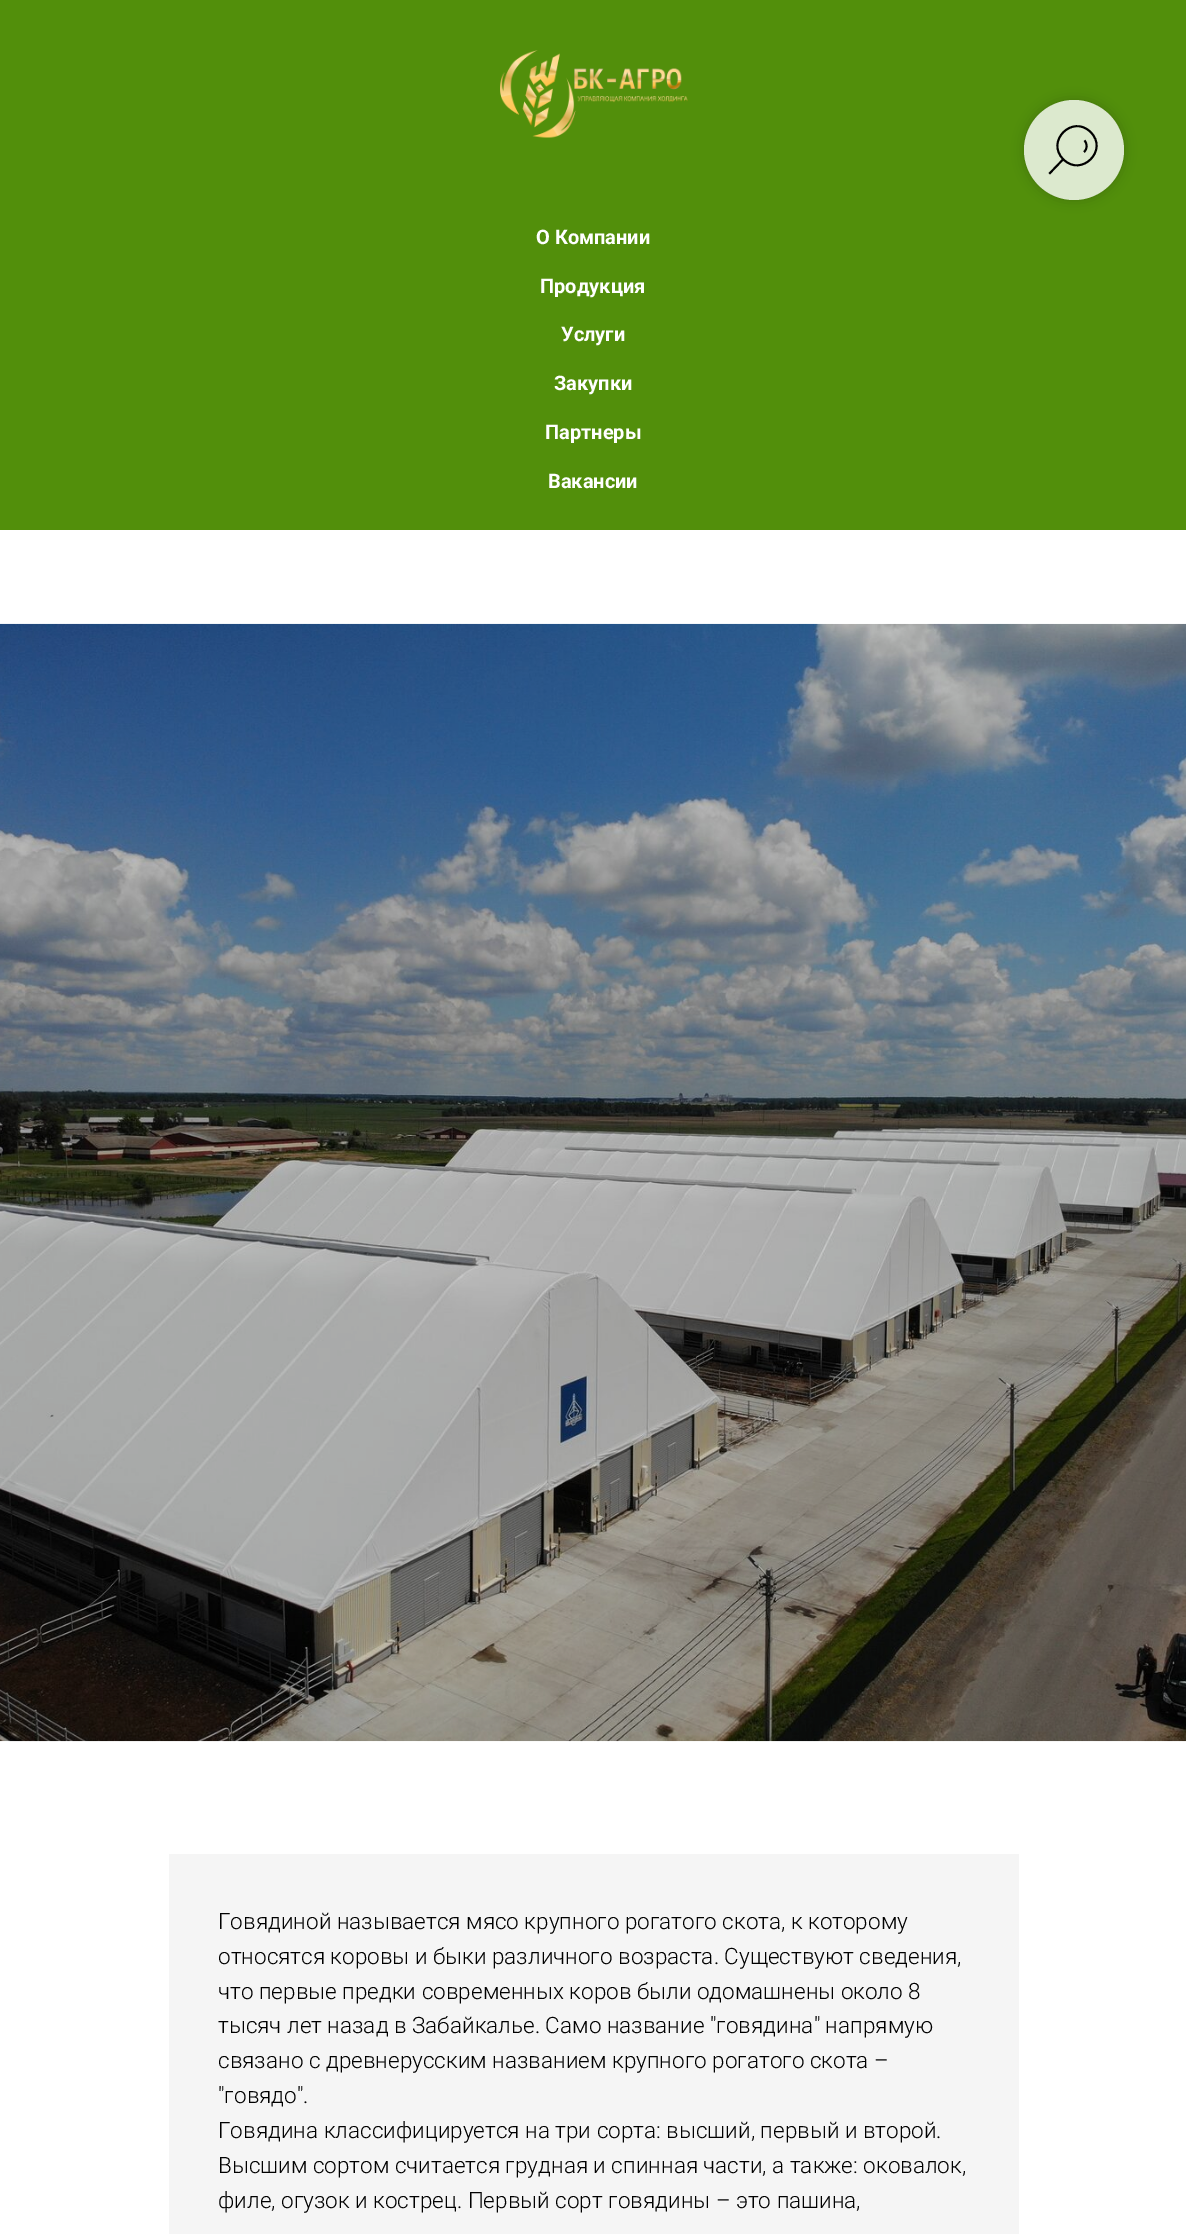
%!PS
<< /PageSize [1186 2234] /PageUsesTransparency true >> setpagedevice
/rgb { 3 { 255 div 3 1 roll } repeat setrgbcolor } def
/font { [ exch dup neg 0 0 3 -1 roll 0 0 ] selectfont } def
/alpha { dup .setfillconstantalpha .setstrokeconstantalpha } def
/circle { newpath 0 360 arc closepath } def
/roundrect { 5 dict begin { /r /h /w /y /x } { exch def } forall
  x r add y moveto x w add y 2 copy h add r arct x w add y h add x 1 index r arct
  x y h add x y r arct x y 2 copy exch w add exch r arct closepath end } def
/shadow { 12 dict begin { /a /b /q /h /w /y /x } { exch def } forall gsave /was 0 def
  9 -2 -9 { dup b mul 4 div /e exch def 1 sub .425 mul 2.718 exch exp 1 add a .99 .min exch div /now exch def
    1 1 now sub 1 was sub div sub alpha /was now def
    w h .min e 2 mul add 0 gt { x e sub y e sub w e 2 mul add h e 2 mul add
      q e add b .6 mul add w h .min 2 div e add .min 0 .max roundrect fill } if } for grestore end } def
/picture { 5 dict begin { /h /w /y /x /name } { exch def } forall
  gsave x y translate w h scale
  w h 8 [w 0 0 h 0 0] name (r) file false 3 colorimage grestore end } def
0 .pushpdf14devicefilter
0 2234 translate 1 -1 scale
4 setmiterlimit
255 255 255 rgb
0 0 1186 2234 rectfill
82 143 11 rgb
0 0 1186 530 rectfill
gsave
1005 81 moveto 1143 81 lineto 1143 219 lineto 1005 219 lineto closepath 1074 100 moveto 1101.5 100 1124 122.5 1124 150 curveto 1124 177.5 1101.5 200 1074 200 curveto 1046.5 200 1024 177.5 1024 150 curveto 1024 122.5 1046.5 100 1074 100 curveto closepath eoclip newpath
0 0 0 rgb
1024 100 100 100 50 6 0.2 shadow
grestore
0.8 alpha
255 255 255 rgb
1074 150 50 circle fill
1 alpha
0 0 0 rgb
1.9 setlinewidth
2 setlinecap
1062.5 160 moveto 1050 173 lineto stroke
0 setlinecap
1090.5 132 moveto 1109 150 1081.5 177.5 1063.5 159.5 curveto 1045 141.5 1072.5 114 1090.5 132 curveto closepath 1084.5 140.5 moveto 1087.5 144 1087.5 149 1084 152 curveto stroke
(img/1.rgb) 500 50 188 88 picture
(img/2.rgb) 0 623 1186 1119 picture
245 245 245 rgb
169 1854 850 380 rectfill
/Roboto-Bold 20 font
255 255 255 rgb
[
  [(О Компании) 536 244]
  [(Продукция) 540 293]
  [(Услуги) 561 341]
  [(Закупки) 554 390]
  [(Партнеры) 545 439]
  [(Вакансии) 548 488]
] { aload pop moveto show } forall
/Roboto-Light 22.5 font
0 0 0 rgb
[
  [(Говядиной называется мясо крупного рогатого скота, к которому) 218 1929]
  [(относятся коровы и быки различного возраста. Существуют сведения,) 218 1964]
  [(что первые предки современных коров были одомашнены около 8) 218 1999]
  [(тысяч лет назад в Забайкалье. Само название "говядина" напрямую) 218 2033]
  [(связано с древнерусским названием крупного рогатого скота –) 218 2068]
  [("говядо".) 218 2103]
  [(Говядина классифицируется на три сорта: высший, первый и второй.) 218 2138]
  [(Высшим сортом считается грудная и спинная части, а также: оковалок,) 218 2173]
  [(филе, огузок и кострец. Первый сорт говядины – это пашина,) 218 2208]
] { aload pop moveto show } forall
.poppdf14devicefilter showpage
